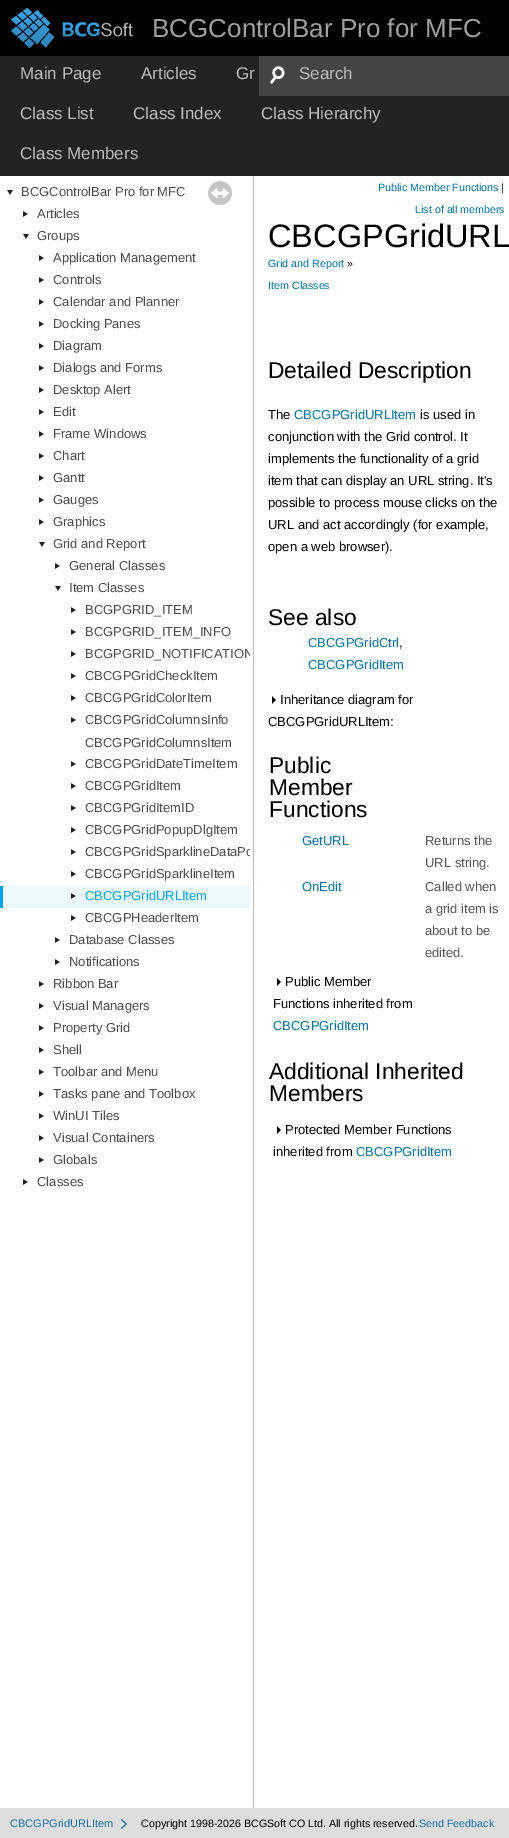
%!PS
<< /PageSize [509 1838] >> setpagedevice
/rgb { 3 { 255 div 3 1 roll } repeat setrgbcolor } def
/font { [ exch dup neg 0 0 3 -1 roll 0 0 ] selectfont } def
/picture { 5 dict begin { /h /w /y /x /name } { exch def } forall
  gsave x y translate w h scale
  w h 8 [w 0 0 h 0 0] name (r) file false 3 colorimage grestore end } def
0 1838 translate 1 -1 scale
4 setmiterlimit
255 255 255 rgb
0 0 509 1838 rectfill
0 0 0 rgb
0 0 509 56 rectfill
(img/1.rgb) 11 8 122 40 picture
35 35 35 rgb
0 56 259 40 rectfill
68 68 68 rgb
259 56 250 40 rectfill
(img/2.rgb) 270 66 15 18 picture
35 35 35 rgb
0 96 509 80 rectfill
(img/3.rgb) 208 181 24 24 picture
(img/4.rgb) 7 190 6 5 picture
(img/5.rgb) 23 211 5 6 picture
(img/4.rgb) 23 234 6 5 picture
(img/5.rgb) 39 255 5 6 picture
(img/5.rgb) 39 277 5 6 picture
(img/5.rgb) 39 299 5 6 picture
(img/5.rgb) 39 321 5 6 picture
(img/5.rgb) 39 343 5 6 picture
(img/5.rgb) 39 365 5 6 picture
(img/5.rgb) 39 387 5 6 picture
(img/5.rgb) 39 409 5 6 picture
(img/5.rgb) 39 431 5 6 picture
(img/5.rgb) 39 453 5 6 picture
(img/5.rgb) 39 475 5 6 picture
(img/5.rgb) 39 497 5 6 picture
(img/5.rgb) 39 519 5 6 picture
(img/4.rgb) 39 542 6 5 picture
(img/5.rgb) 55 563 5 6 picture
(img/4.rgb) 55 586 6 5 picture
(img/5.rgb) 71 607 5 6 picture
(img/5.rgb) 71 629 5 6 picture
(img/5.rgb) 71 651 5 6 picture
(img/5.rgb) 71 673 5 6 picture
(img/5.rgb) 71 695 5 6 picture
(img/5.rgb) 71 717 5 6 picture
(img/5.rgb) 71 761 5 6 picture
(img/5.rgb) 71 783 5 6 picture
(img/5.rgb) 71 805 5 6 picture
(img/5.rgb) 71 827 5 6 picture
(img/5.rgb) 71 849 5 6 picture
(img/5.rgb) 71 871 5 6 picture
235 248 254 rgb
3 886 247 22 rectfill
0 164 239 rgb
0 886 3 22 rectfill
(img/5.rgb) 71 893 5 6 picture
(img/5.rgb) 71 915 5 6 picture
(img/5.rgb) 55 937 5 6 picture
(img/5.rgb) 55 959 5 6 picture
(img/5.rgb) 39 981 5 6 picture
(img/5.rgb) 39 1003 5 6 picture
(img/5.rgb) 39 1025 5 6 picture
(img/5.rgb) 39 1047 5 6 picture
(img/5.rgb) 39 1069 5 6 picture
(img/5.rgb) 39 1091 5 6 picture
(img/5.rgb) 39 1113 5 6 picture
(img/5.rgb) 39 1135 5 6 picture
(img/5.rgb) 39 1157 5 6 picture
(img/5.rgb) 23 1179 5 6 picture
190 190 190 rgb
253 176 1 1632 rectfill
(img/6.rgb) 272 696 4 8 picture
(img/6.rgb) 277 978 4 8 picture
(img/6.rgb) 277 1126 4 8 picture
221 221 221 rgb
0 1808 509 30 rectfill
(img/7.rgb) 121 1819 6 10 picture
/LiberationSans-Regular 26 font
160 160 160 rgb
152 37 moveto (BCGControlBar Pro for MFC) show
/LiberationSans-Regular 17 font
189 189 189 rgb
[
  [(Main Page) 20 79]
  [(Articles) 141 79]
  [(Gr) 236 79]
  [(Search) 299 79]
  [(Class List) 20 119]
  [(Class Index) 133 119]
  [(Class Hierarchy) 261 119]
  [(Class Members) 20 159]
] { aload pop moveto show } forall
/LiberationSans-Regular 13 font
76 76 76 rgb
[
  [(BCGControlBar Pro for MFC) 21 196]
  [(Articles) 37 218]
  [(Groups) 37 240]
  [(Application Management) 53 262]
  [(Controls) 53 284]
  [(Calendar and Planner) 53 306]
  [(Docking Panes) 53 328]
  [(Diagram) 53 350]
  [(Dialogs and Forms) 53 372]
  [(Desktop Alert) 53 394]
  [(Edit) 53 416]
  [(Frame Windows) 53 438]
  [(Chart) 53 460]
  [(Gantt) 53 482]
  [(Gauges) 53 504]
  [(Graphics) 53 526]
  [(Grid and Report) 53 548]
  [(General Classes) 69 570]
  [(Item Classes) 69 592]
  [(BCGPGRID_ITEM) 85 614]
  [(BCGPGRID_ITEM_INFO) 85 636]
] { aload pop moveto show } forall
gsave
0 176 250 1632 rectclip
85 658 moveto (BCGPGRID_NOTIFICATION) show
grestore
[
  [(CBCGPGridCheckItem) 85 680]
  [(CBCGPGridColorItem) 85 702]
  [(CBCGPGridColumnsInfo) 85 724]
  [(CBCGPGridColumnsItem) 85 747]
  [(CBCGPGridDateTimeItem) 85 768]
  [(CBCGPGridItem) 85 790]
  [(CBCGPGridItemID) 85 812]
  [(CBCGPGridPopupDlgItem) 85 834]
] { aload pop moveto show } forall
gsave
0 176 250 1632 rectclip
85 856 moveto (CBCGPGridSparklineDataPo) show
grestore
85 878 moveto (CBCGPGridSparklineItem) show
0 164 239 rgb
85 900 moveto (CBCGPGridURLItem) show
76 76 76 rgb
[
  [(CBCGPHeaderItem) 85 922]
  [(Database Classes) 69 944]
  [(Notifications) 69 966]
  [(Ribbon Bar) 53 988]
  [(Visual Managers) 53 1010]
  [(Property Grid) 53 1032]
  [(Shell) 53 1054]
  [(Toolbar and Menu) 53 1076]
  [(Tasks pane and Toolbox) 53 1098]
  [(WinUI Tiles) 53 1120]
  [(Visual Containers) 53 1142]
  [(Globals) 53 1164]
  [(Classes) 37 1186]
] { aload pop moveto show } forall
/LiberationSans-Regular 10.7 font
0 112 159 rgb
378 191 moveto (Public Member Functions) show
0 0 0 rgb
501 191 moveto (|) show
0 112 159 rgb
415 213 moveto (List of all members) show
/LiberationSans-Regular 32.5 font
0 0 0 rgb
268 247 moveto (CBCGPGridURL) show
/LiberationSans-Regular 10.7 font
0 112 159 rgb
268 267 moveto (Grid and Report) show
0 0 0 rgb
347 267 moveto (») show
0 112 159 rgb
268 289 moveto (Item Classes) show
/LiberationSans-Regular 22.75 font
0 0 0 rgb
268 378 moveto (Detailed Description) show
/LiberationSans-Regular 13 font
268 419 moveto (The) show
0 112 159 rgb
294 419 moveto (CBCGPGridURLItem) show
0 0 0 rgb
[
  [(is used in) 420 419]
  [(conjunction with the Grid control. It) 268 441]
  [(implements the functionality of a grid) 268 463]
  [(item that can display an URL string. It's) 268 485]
  [(possible to process mouse clicks on the) 268 507]
  [(URL and act accordingly \(for example,) 268 529]
  [(open a web browser\).) 268 551]
] { aload pop moveto show } forall
/LiberationSans-Regular 22.75 font
268 625 moveto (See also) show
/LiberationSans-Regular 13 font
0 112 159 rgb
308 647 moveto (CBCGPGridCtrl) show
0 0 0 rgb
399 647 moveto (,) show
0 112 159 rgb
308 669 moveto (CBCGPGridItem) show
0 0 0 rgb
280 704 moveto (Inheritance diagram for) show
268 726 moveto (CBCGPGridURLItem:) show
/LiberationSans-Regular 22.75 font
[
  [(Public) 269 773]
  [(Member) 269 795]
  [(Functions) 269 817]
] { aload pop moveto show } forall
/LiberationSans-Regular 13 font
0 112 159 rgb
302 845 moveto (GetURL) show
85 85 85 rgb
425 845 moveto (Returns the) show
425 867 moveto (URL string.) show
0 112 159 rgb
302 891 moveto (OnEdit) show
85 85 85 rgb
[
  [(Called when) 425 891]
  [(a grid item is) 425 913]
  [(about to be) 425 935]
  [(edited.) 425 957]
] { aload pop moveto show } forall
0 0 0 rgb
285 986 moveto (Public Member) show
273 1008 moveto (Functions inherited from) show
0 112 159 rgb
273 1030 moveto (CBCGPGridItem) show
/LiberationSans-Regular 22.75 font
0 0 0 rgb
269 1079 moveto (Additional Inherited) show
269 1101 moveto (Members) show
/LiberationSans-Regular 13 font
285 1134 moveto (Protected Member Functions) show
273 1156 moveto (inherited from) show
0 112 159 rgb
356 1156 moveto (CBCGPGridItem) show
/LiberationSans-Regular 11 font
21 112 166 rgb
10 1827 moveto (CBCGPGridURLItem) show
/LiberationSans-Regular 10.7 font
0 0 0 rgb
141 1827 moveto (Copyright 1998-2026 BCGSoft CO Ltd. All rights reserved.) show
21 112 166 rgb
419 1827 moveto (Send Feedback) show
showpage
